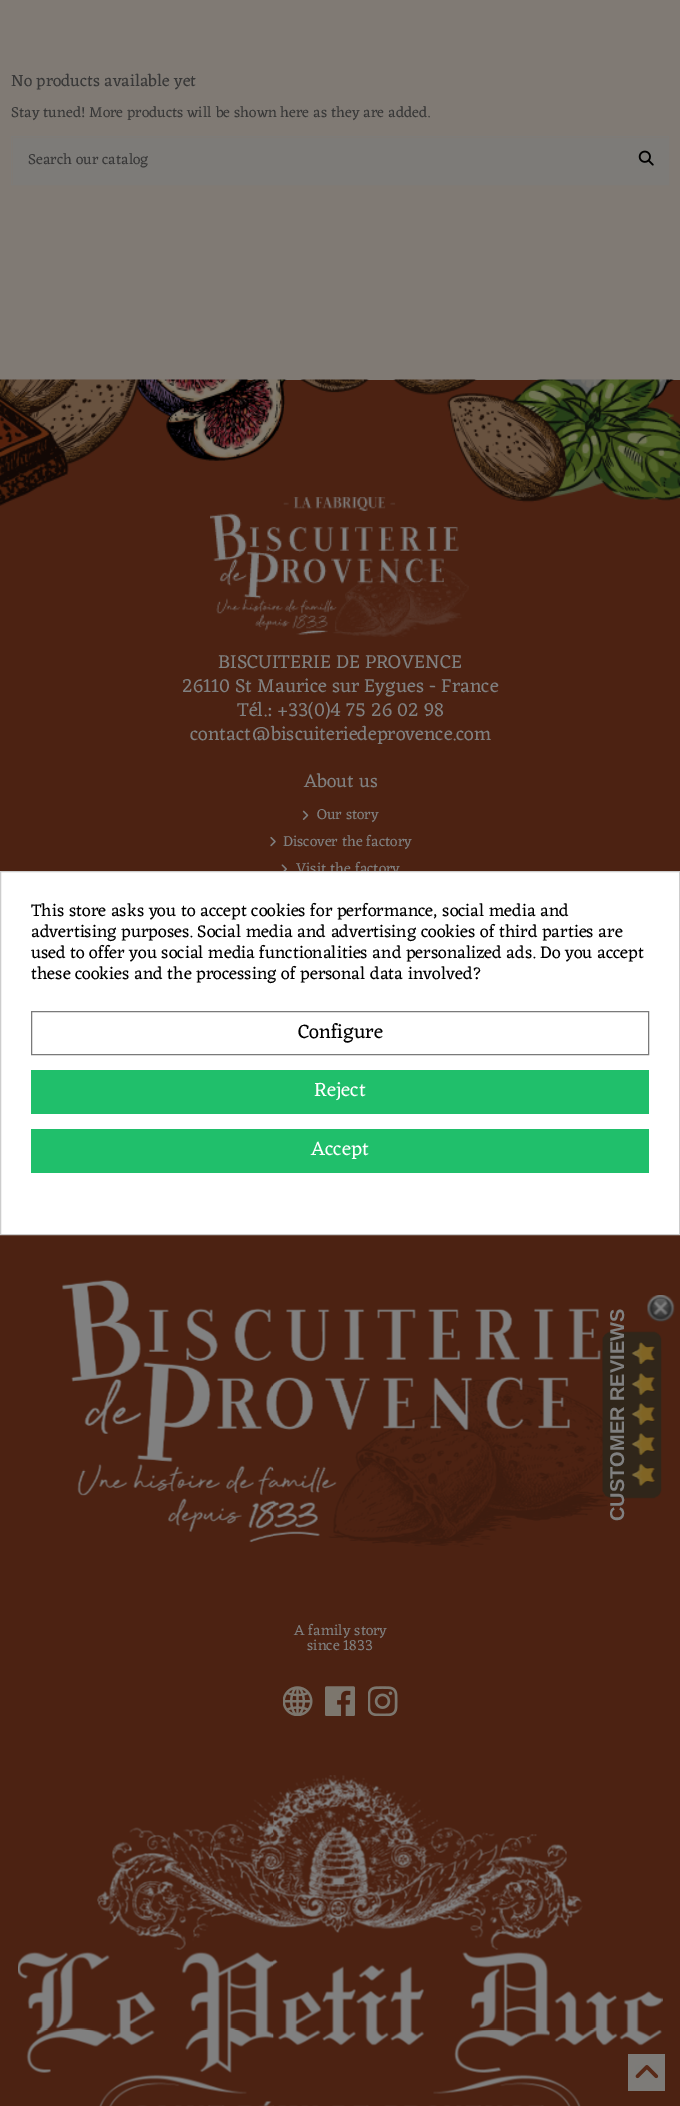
%!PS
<< /PageSize [680 2106] >> setpagedevice
/rgb { 3 { 255 div 3 1 roll } repeat setrgbcolor } def
/font { [ exch dup neg 0 0 3 -1 roll 0 0 ] selectfont } def
/picture { 5 dict begin { /h /w /y /x /name } { exch def } forall
  gsave x y translate w h scale
  w h 8 [w 0 0 h 0 0] name (r) file false 3 colorimage grestore end } def
0 2106 translate 1 -1 scale
4 setmiterlimit
128 122 116 rgb
0 0 680 2106 rectfill
125 123 120 rgb
13 138 655 46 rectfill
11.5 136.5 657 48 rectstroke
(img/1.rgb) 638 150 16 16 picture
76 34 18 rgb
0 380 680 1726 rectfill
(img/2.rgb) 0 379 680 127 picture
(img/3.rgb) 210 497 259 140 picture
(img/4.rgb) 302 810 7 10 picture
(img/5.rgb) 270 836 6 11 picture
(img/6.rgb) 281 864 6 7 picture
(img/7.rgb) 62 1279 546 269 picture
(img/8.rgb) 283 1686 30 30 picture
(img/9.rgb) 325 1686 30 30 picture
(img/10.rgb) 368 1686 30 30 picture
(img/11.rgb) 18 1775 645 331 picture
(img/12.rgb) 602 1331 60 168 picture
(img/13.rgb) 631 1342 24 144 picture
(img/14.rgb) 647 1295 28 27 picture
125 123 120 rgb
628 2054 37 37 rectfill
(img/15.rgb) 635 2065 24 14 picture
/Eczar-Regular 16.9 font
56 56 56 rgb
11 86 moveto (No products available yet) show
/Eczar-Regular 15 font
11 117 moveto (Stay tuned! More products will be shown here as they are added.) show
28 164 moveto (Search our catalog) show
/Eczar-Regular 19.5 font
128 128 128 rgb
[
  [(BISCUITERIE DE PROVENCE) 218 668]
  [(26110 St Maurice sur Eygues - France) 182 692]
  [(Tél.: +33\(0\)4 75 26 02 98) 237 716]
  [(contact@biscuiteriedeprovence.com) 190 740]
] { aload pop moveto show } forall
/Eczar-Regular 19 font
304 787 moveto (About us) show
/Eczar-Regular 15 font
[
  [(Our story) 317 819]
  [(Discover the factory) 283 846]
  [(Visit the factory) 296 873]
  [(A family story) 294 1635]
  [(since 1833) 307 1650]
] { aload pop moveto show } forall
/LiberationSans-Bold 20 font
gsave 624 1521 translate -90 rotate 0 0 moveto (CUSTOMER REVIEWS) show grestore
255 255 255 rgb
0.5 871.5 moveto 679.5 871.5 lineto 679.5 1234.5 lineto 0.5 1234.5 lineto closepath gsave fill grestore
204 204 204 rgb
stroke
/Eczar-Regular 17.5 font
0 0 0 rgb
[
  [(This store asks you to accept cookies for performance, social media and) 31 916]
  [(advertising purposes. Social media and advertising cookies of third parties are) 31 937]
  [(used to offer you social media functionalities and personalized ads. Do you accept) 31 958]
  [(these cookies and the processing of personal data involved?) 31 979]
] { aload pop moveto show } forall
122 122 122 rgb
31.5 1011.5 617 43 rectstroke
/Eczar-Regular 20 font
0 0 0 rgb
298 1038 moveto (Configure) show
32 191 107 rgb
31 1070 618 44 rectfill
255 255 255 rgb
314 1096 moveto (Reject) show
32 191 107 rgb
31 1129 618 44 rectfill
255 255 255 rgb
311 1155 moveto (Accept) show
showpage
